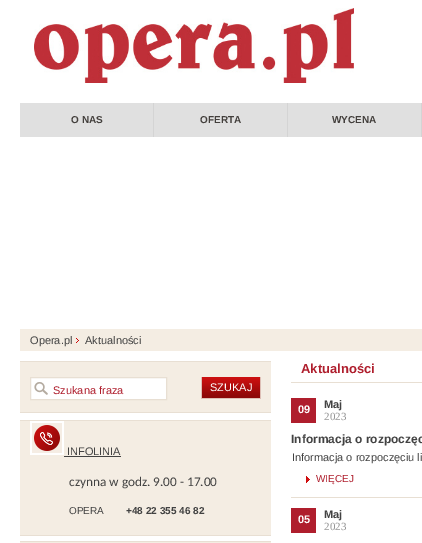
%!PS
<< /PageSize [422 543] >> setpagedevice
/rgb { 3 { 255 div 3 1 roll } repeat setrgbcolor } def
/font { [ exch dup neg 0 0 3 -1 roll 0 0 ] selectfont } def
/picture { 5 dict begin { /h /w /y /x /name } { exch def } forall
  gsave x y translate w h scale
  w h 8 [w 0 0 h 0 0] name (r) file false 3 colorimage grestore end } def
0 543 translate 1 -1 scale
4 setmiterlimit
255 255 255 rgb
0 0 422 543 rectfill
(img/1.rgb) 34 8 320 75 picture
[
  [20 103 133 34 224 224 224]
  [153 103 1 34 212 212 212]
  [154 103 133 34 224 224 224]
  [287 103 1 34 212 212 212]
  [288 103 133 34 224 224 224]
  [421 103 1 34 212 212 212]
  [20 329 402 22 244 237 227]
] { aload pop rgb rectfill } forall
(img/2.rgb) 76 338 3 5 picture
[
  [20 412 251 1 232 223 211]
  [20 362 251 50 244 237 227]
  [20 361 251 1 232 223 211]
  [31 378 135 21 255 255 255]
] { aload pop rgb rectfill } forall
(img/3.rgb) 34 382 14 13 picture
232 223 211 rgb
30.5 377.5 136 22 rectstroke
(img/4.rgb) 202 377 58 21 picture
[
  [260 377 1 22 222 191 182]
  [201 398 60 1 222 191 182]
  [201 377 1 22 222 191 182]
  [20 421 251 114 244 237 227]
  [20 420 251 1 232 223 211]
  [20 535 251 1 232 223 211]
] { aload pop rgb rectfill } forall
(img/5.rgb) 30 421 34 34 picture
[
  [64 456 57 1 66 66 66]
  [20 542 251 1 244 237 227]
  [20 541 251 1 232 223 211]
  [291 382 131 1 232 223 211]
  [291 398 25 25 175 30 45]
] { aload pop rgb rectfill } forall
(img/6.rgb) 306 476 4 7 picture
232 223 211 rgb
291 497 131 1 rectfill
175 30 45 rgb
291 508 25 25 rectfill
/LiberationSans-Bold 10 font
67 63 60 rgb
[
  [(O NAS) 71 123]
  [(OFERTA) 200 123]
  [(WYCENA) 332 123]
] { aload pop moveto show } forall
/LiberationSans-Regular 11 font
66 66 66 rgb
30 344 moveto (Opera.pl) show
85 344 moveto (Aktualności) show
175 30 45 rgb
53 394 moveto (Szukana fraza) show
255 255 255 rgb
210 391 moveto (SZUKAJ) show
66 66 66 rgb
67 455 moveto (INFOLINIA) show
/Carlito-Regular 13.25 font
69 486 moveto (czynna w godz. 9.00 - 17.00) show
/LiberationSans-Regular 10 font
69 514 moveto (OPERA) show
/LiberationSans-Bold 10 font
126 514 moveto (+48 22 355 46 82) show
/LiberationSans-Bold 13 font
175 30 45 rgb
301 373 moveto (Aktualności) show
/LiberationSans-Bold 11 font
255 255 255 rgb
298 413 moveto (09) show
66 66 66 rgb
324 408 moveto (Maj) show
/LiberationSerif-Regular 11 font
149 149 149 rgb
324 420 moveto (2023) show
/LiberationSans-Bold 12 font
66 66 66 rgb
291 443 moveto (Informacja o rozpoczęc) show
/LiberationSans-Regular 11 font
292 461 moveto (Informacja o rozpoczęciu li) show
/LiberationSans-Regular 10 font
175 30 45 rgb
316 482 moveto (WIĘCEJ) show
/LiberationSans-Bold 11 font
255 255 255 rgb
298 523 moveto (05) show
66 66 66 rgb
324 518 moveto (Maj) show
/LiberationSerif-Regular 11 font
149 149 149 rgb
324 530 moveto (2023) show
showpage
